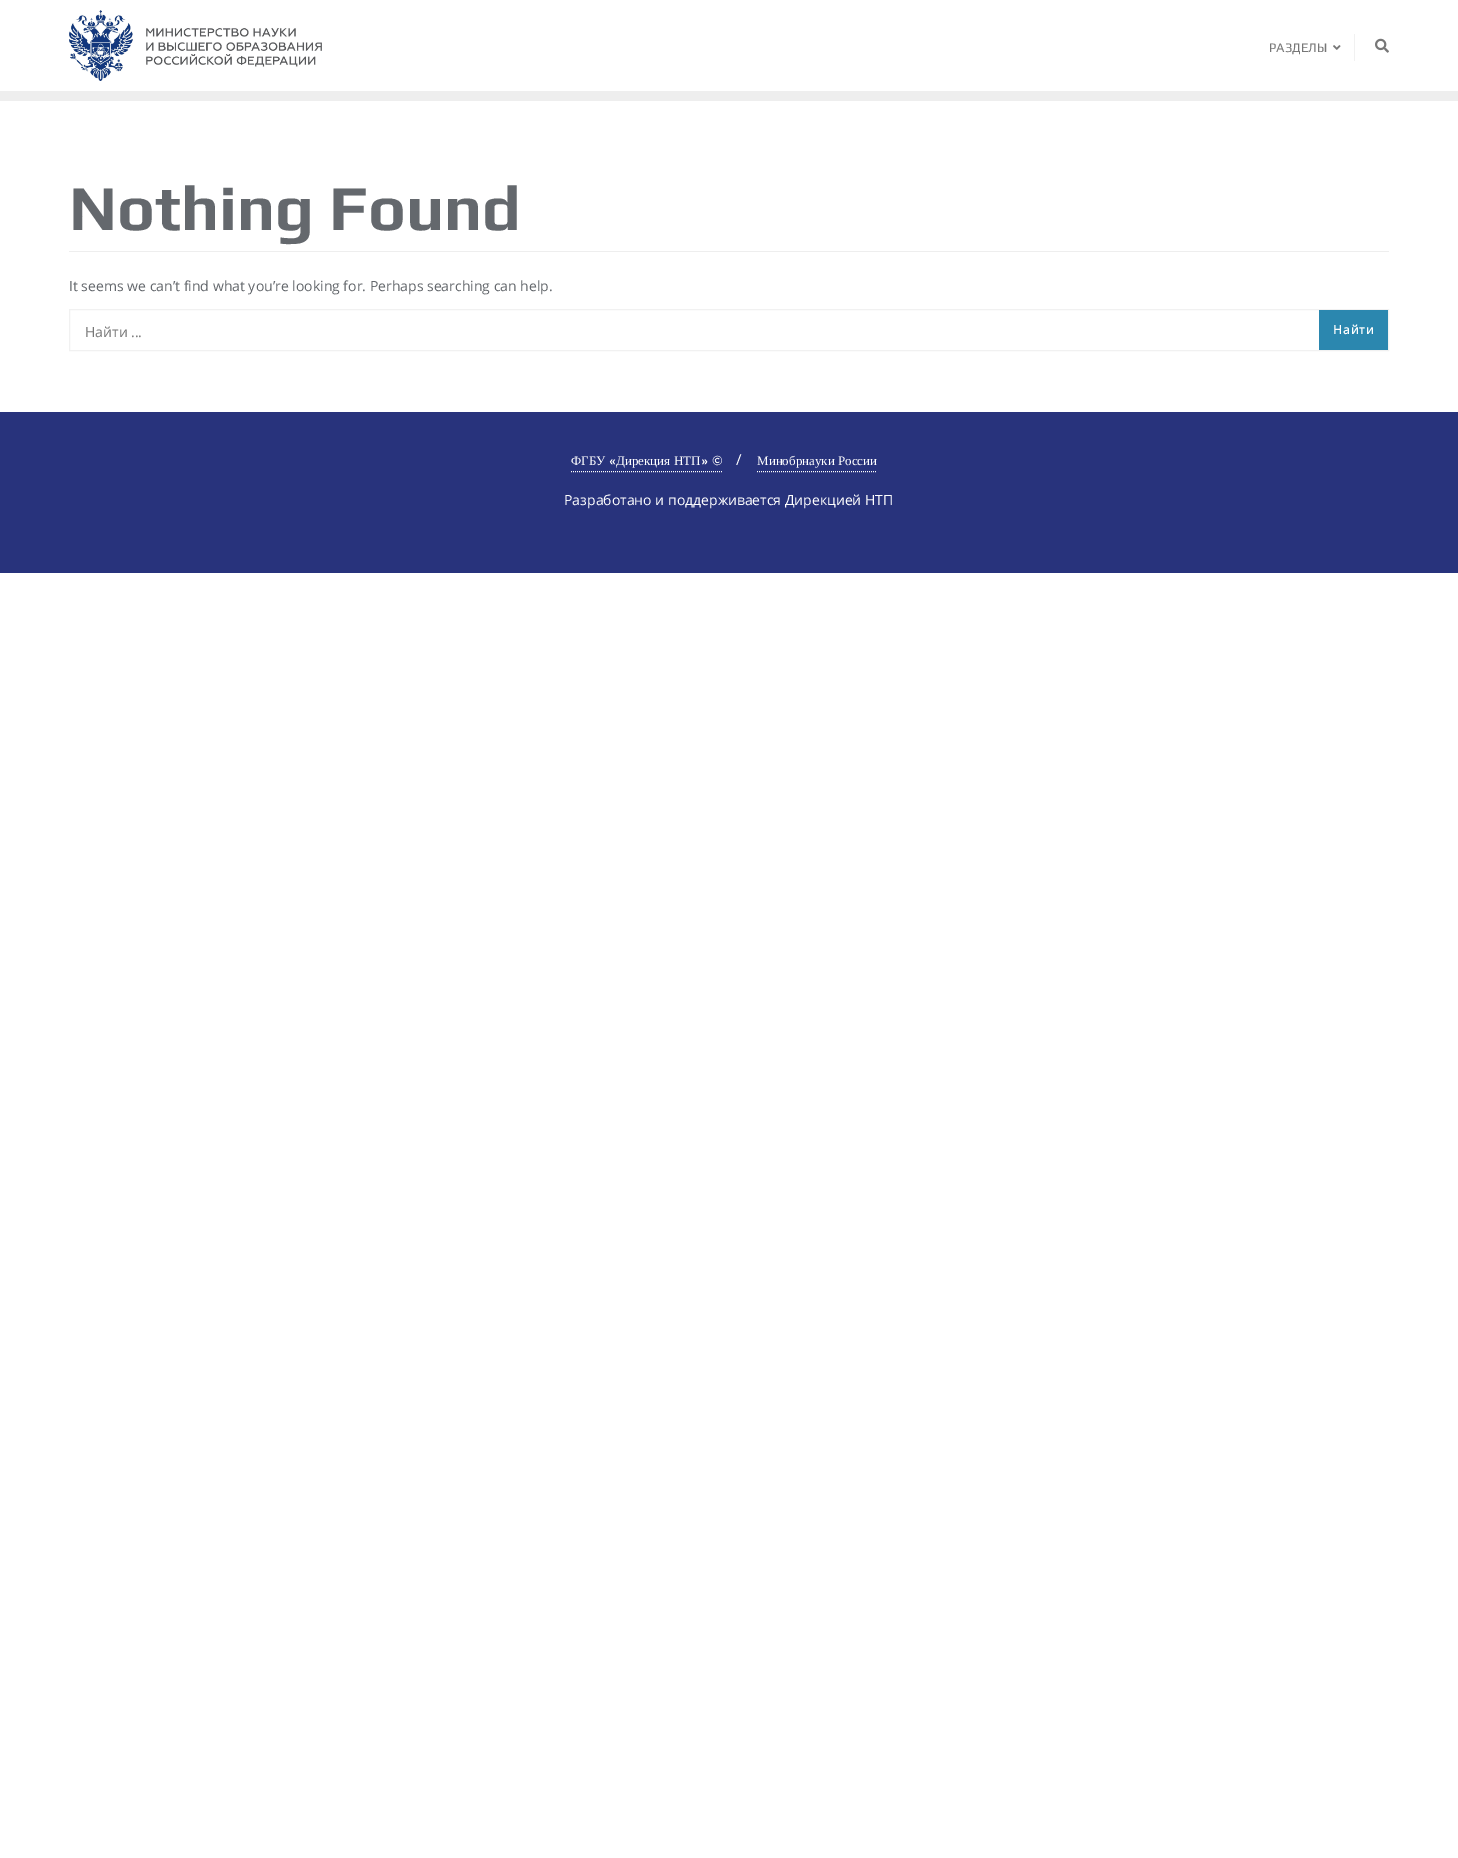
%!PS
<< /PageSize [1458 1858] >> setpagedevice
/rgb { 3 { 255 div 3 1 roll } repeat setrgbcolor } def
/font { [ exch dup neg 0 0 3 -1 roll 0 0 ] selectfont } def
/picture { 5 dict begin { /h /w /y /x /name } { exch def } forall
  gsave x y translate w h scale
  w h 8 [w 0 0 h 0 0] name (r) file false 3 colorimage grestore end } def
0 1858 translate 1 -1 scale
4 setmiterlimit
255 255 255 rgb
0 0 1458 1858 rectfill
238 238 238 rgb
0 91 1458 10 rectfill
(img/1.rgb) 69 10 253 71 picture
(img/2.rgb) 1333 45 8 5 picture
241 241 241 rgb
1354 34 1 27 rectfill
(img/3.rgb) 1375 38 14 15 picture
238 238 238 rgb
69 251 1320 1 rectfill
241 241 241 rgb
69.5 309.5 1319 41 rectstroke
43 135 175 rgb
1319 310 69 40 rectfill
40 51 124 rgb
0 412 1458 161 rectfill
255 255 255 rgb
[1 1] 0 setdash
571 471.5 moveto 722 471.5 lineto stroke
757 471.5 moveto 877 471.5 lineto stroke
/Play-Regular 13 font
119 119 119 rgb
1269 52 moveto (РАЗДЕЛЫ) show
/Play-Bold 64 font
100 104 109 rgb
69 230 moveto (Nothing Found) show
/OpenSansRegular-Regular 14 font
69 291 moveto (It seems we can’t find what you’re looking for. Perhaps searching can help.) show
119 119 119 rgb
85 337 moveto (Найти ...) show
/OpenSansRegular-Bold 12 font
255 255 255 rgb
1333 334 moveto 1 0 (Найти) ashow
/LiberationSerif-Regular 13 font
571 465 moveto (ФГБУ) show
/Montserrat-Regular 13 font
609 465 moveto («) show
/LiberationSerif-Regular 13 font
616 465 moveto (Дирекция) show
674 465 moveto (НТП) show
/Montserrat-Regular 13 font
701 465 moveto (» ©) show
/OpenSansRegular-Regular 15 font
736 465 moveto (/) show
/LiberationSerif-Regular 13 font
757 465 moveto (Минобрнауки России) show
/OpenSansRegular-Regular 14 font
564 505 moveto (Разработано и поддерживается Дирекцией НТП) show
showpage
